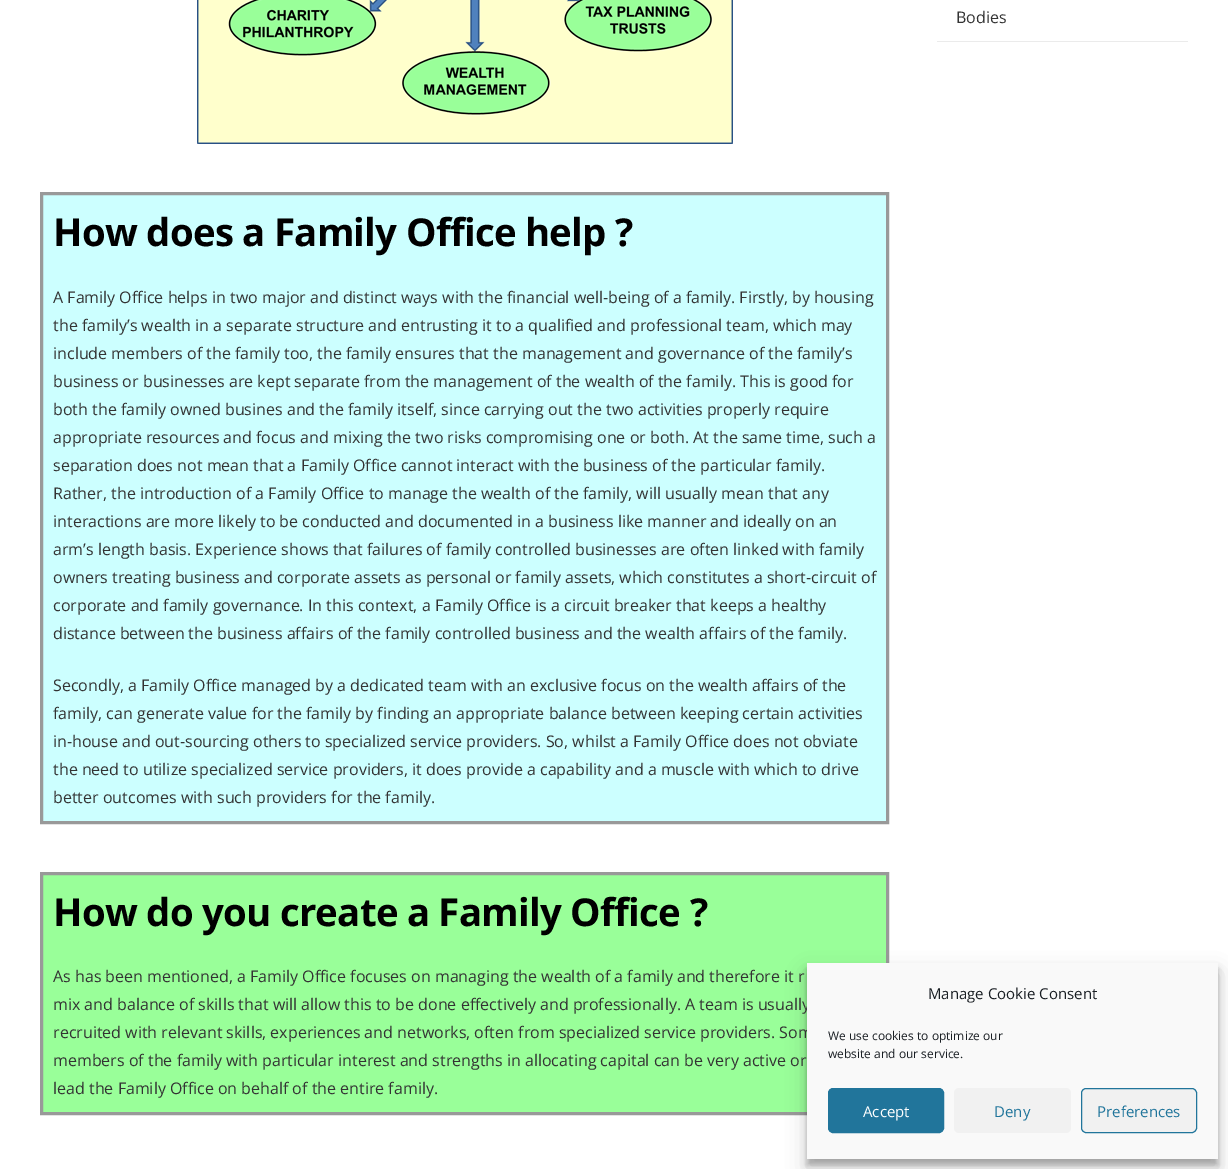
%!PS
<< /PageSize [1228 1169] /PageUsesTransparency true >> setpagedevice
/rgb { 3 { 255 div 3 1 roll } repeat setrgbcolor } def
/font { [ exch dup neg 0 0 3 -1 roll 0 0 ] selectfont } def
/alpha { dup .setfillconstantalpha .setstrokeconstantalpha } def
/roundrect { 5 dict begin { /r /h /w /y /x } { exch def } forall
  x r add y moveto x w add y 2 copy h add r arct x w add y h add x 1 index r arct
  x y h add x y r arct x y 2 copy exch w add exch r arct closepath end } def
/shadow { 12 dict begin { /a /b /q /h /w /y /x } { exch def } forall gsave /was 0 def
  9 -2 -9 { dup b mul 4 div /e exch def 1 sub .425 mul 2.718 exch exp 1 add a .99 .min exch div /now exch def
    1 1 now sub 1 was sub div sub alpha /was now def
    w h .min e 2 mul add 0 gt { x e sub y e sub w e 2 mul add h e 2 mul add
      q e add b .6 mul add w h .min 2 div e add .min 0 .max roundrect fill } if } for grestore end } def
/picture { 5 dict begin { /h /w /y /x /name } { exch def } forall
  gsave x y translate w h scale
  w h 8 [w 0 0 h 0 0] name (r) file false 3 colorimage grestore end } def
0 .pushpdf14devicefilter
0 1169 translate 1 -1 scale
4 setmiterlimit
255 255 255 rgb
0 0 1228 1169 rectfill
235 235 235 rgb
937 41 251 1 rectfill
(img/1.rgb) 197 0 536 144 picture
204 255 255 rgb
41.5 193.5 moveto 887.5 193.5 lineto 887.5 822.5 lineto 41.5 822.5 lineto closepath gsave fill grestore
153 153 153 rgb
3 setlinewidth
stroke
153 255 153 rgb
41.5 873.5 moveto 887.5 873.5 lineto 887.5 1113.5 lineto 41.5 1113.5 lineto closepath gsave fill grestore
153 153 153 rgb
stroke
0 0 0 rgb
807 969 411 196 0 3 0.23 shadow
807 973 411 196 0 10 0.19 shadow
/OpenSans-Regular 16 font
51 51 51 rgb
956 23 moveto (Bodies) show
/NotoSans-Bold 38.4 font
0 0 0 rgb
53 246 moveto -0.75 0 (How does a Family Office help ?) ashow
/OpenSans-Regular 16 font
51 51 51 rgb
[
  [(A Family Office helps in two major and distinct ways with the financial well-being of a family. Firstly, by housing) 53 303]
  [(the family’s wealth in a separate structure and entrusting it to a qualified and professional team, which may) 53 331]
  [(include members of the family too, the family ensures that the management and governance of the family’s) 53 359]
  [(business or businesses are kept separate from the management of the wealth of the family. This is good for) 53 387]
  [(both the family owned busines and the family itself, since carrying out the two activities properly require) 53 415]
  [(appropriate resources and focus and mixing the two risks compromising one or both. At the same time, such a) 53 443]
  [(separation does not mean that a Family Office cannot interact with the business of the particular family.) 53 471]
  [(Rather, the introduction of a Family Office to manage the wealth of the family, will usually mean that any) 53 499]
  [(interactions are more likely to be conducted and documented in a business like manner and ideally on an) 53 527]
  [(arm’s length basis. Experience shows that failures of family controlled businesses are often linked with family) 53 555]
  [(owners treating business and corporate assets as personal or family assets, which constitutes a short-circuit of) 53 583]
  [(corporate and family governance. In this context, a Family Office is a circuit breaker that keeps a healthy) 53 611]
  [(distance between the business affairs of the family controlled business and the wealth affairs of the family.) 53 639]
  [(Secondly, a Family Office managed by a dedicated team with an exclusive focus on the wealth affairs of the) 53 691]
  [(family, can generate value for the family by finding an appropriate balance between keeping certain activities) 53 719]
  [(in-house and out-sourcing others to specialized service providers. So, whilst a Family Office does not obviate) 53 747]
  [(the need to utilize specialized service providers, it does provide a capability and a muscle with which to drive) 53 775]
  [(better outcomes with such providers for the family.) 53 803]
] { aload pop moveto show } forall
/NotoSans-Bold 38.4 font
0 0 0 rgb
53 926 moveto -0.75 0 (How do you create a Family Office ?) ashow
/OpenSans-Regular 16 font
51 51 51 rgb
[
  [(As has been mentioned, a Family Office focuses on managing the wealth of a family and therefore it r) 53 982]
  [(mix and balance of skills that will allow this to be done effectively and professionally. A team is usually) 53 1010]
  [(recruited with relevant skills, experiences and networks, often from specialized service providers. Som) 53 1038]
  [(members of the family with particular interest and strengths in allocating capital can be very active or) 53 1066]
  [(lead the Family Office on behalf of the entire family.) 53 1094]
] { aload pop moveto show } forall
249 249 249 rgb
807 963 411 196 rectfill
/OpenSans-Regular 15 font
25 30 35 rgb
928 999 moveto (Manage Cookie Consent) show
/OpenSans-Regular 12 font
828 1040 moveto (We use cookies to optimize our) show
828 1058 moveto (website and our service.) show
33 117 155 rgb
828.5 1088.5 115 44 4.5 roundrect gsave fill grestore
1 setlinewidth
stroke
/OpenSans-Regular 15 font
255 255 255 rgb
863 1117 moveto (Accept) show
241 241 241 rgb
954 1088 117 45 5 roundrect fill
33 117 155 rgb
994 1117 moveto (Deny) show
241 241 241 rgb
1081.5 1088.5 115 44 4.5 roundrect gsave fill grestore
33 117 155 rgb
stroke
1097 1117 moveto (Preferences) show
.poppdf14devicefilter showpage
